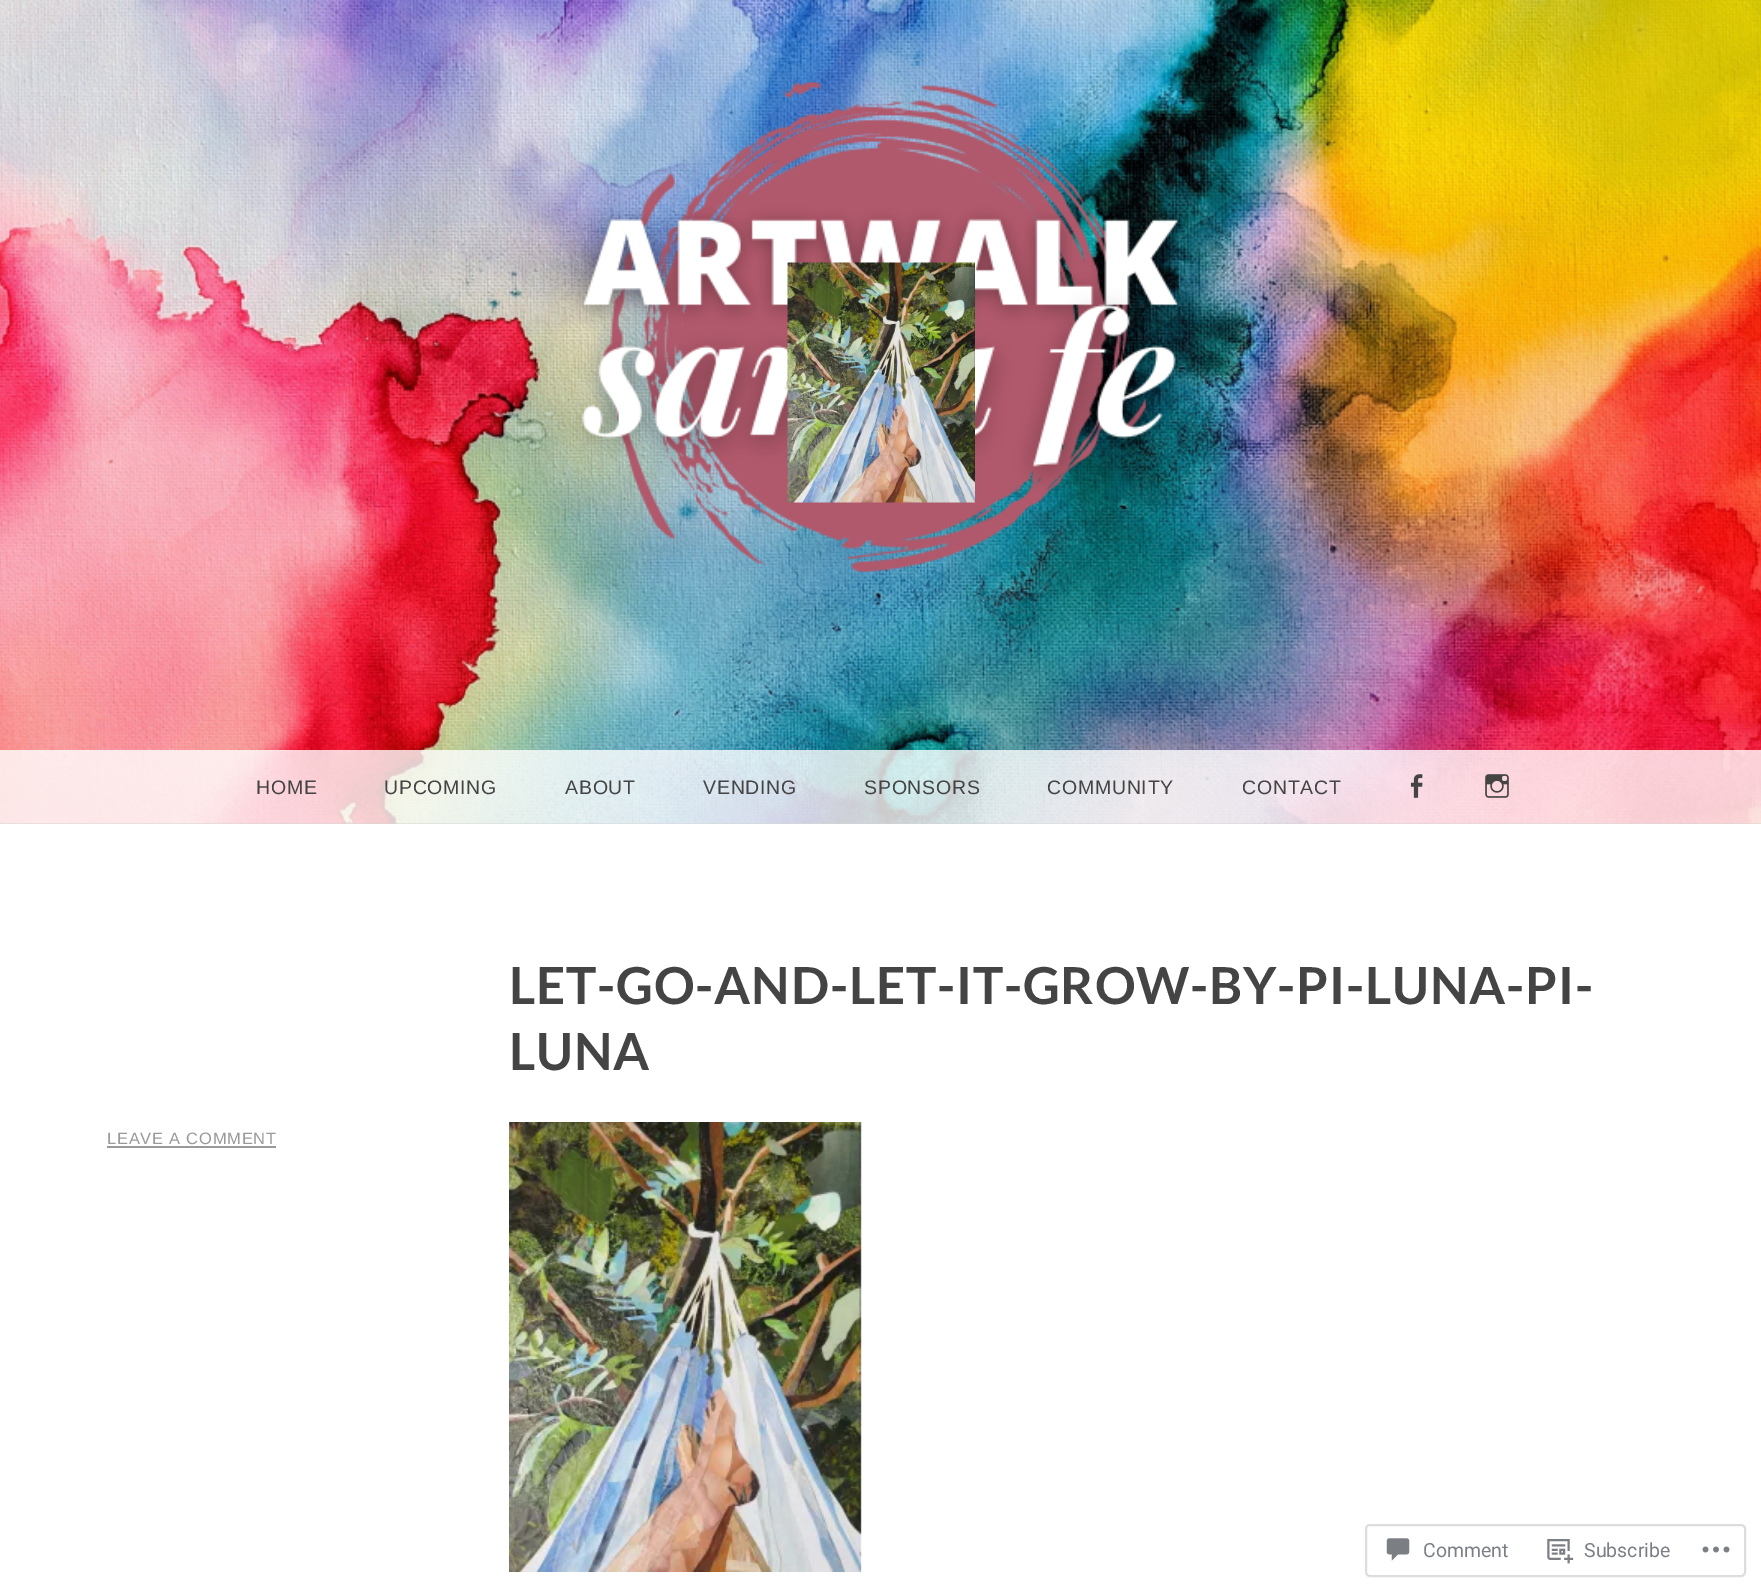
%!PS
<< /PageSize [1761 1591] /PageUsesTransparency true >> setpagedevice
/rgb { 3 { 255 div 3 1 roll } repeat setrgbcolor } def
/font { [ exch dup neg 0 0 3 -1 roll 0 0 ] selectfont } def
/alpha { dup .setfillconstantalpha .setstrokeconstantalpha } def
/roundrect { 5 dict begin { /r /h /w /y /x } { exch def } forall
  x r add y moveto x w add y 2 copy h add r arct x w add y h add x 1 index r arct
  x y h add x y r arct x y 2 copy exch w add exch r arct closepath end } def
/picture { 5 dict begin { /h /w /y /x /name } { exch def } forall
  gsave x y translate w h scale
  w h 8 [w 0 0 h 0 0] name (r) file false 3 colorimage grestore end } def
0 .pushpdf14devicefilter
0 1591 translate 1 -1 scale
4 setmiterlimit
255 255 255 rgb
0 0 1761 1591 rectfill
51 51 51 rgb
0 823 1761 1 rectfill
(img/1.rgb) 0 0 1761 824 picture
(img/2.rgb) 787 262 188 241 picture
0.8 alpha
255 255 255 rgb
0 750 1761 74 rectfill
1 alpha
(img/3.rgb) 1410 774 13 24 picture
(img/4.rgb) 1485 774 24 24 picture
153 153 153 rgb
107 1146 169 2 rectfill
(img/5.rgb) 509 1122 353 450 picture
221 221 223 rgb
2 setlinewidth
1366 1525 379 51 4 roundrect stroke
(img/6.rgb) 1386 1538 24 23 picture
(img/7.rgb) 1547 1539 27 25 picture
(img/8.rgb) 1702 1546 28 7 picture
/LiberationSans-Regular 19.5 font
68 68 68 rgb
256 794 moveto 0.75 0 (HOME) ashow
384 794 moveto 0.75 0 (UPCOMING) ashow
565 794 moveto 0.75 0 (ABOUT) ashow
703 794 moveto 0.75 0 (VENDING) ashow
864 794 moveto 0.75 0 (SPONSORS) ashow
1047 794 moveto 0.75 0 (COMMUNITY) ashow
1242 794 moveto 0.75 0 (CONTACT) ashow
/Lato-Bold 51 font
509 1004 moveto 0.75 0 (LET-GO-AND-LET-IT-GROW-BY-PI-LUNA-PI-) ashow
509 1070 moveto 0.75 0 (LUNA) ashow
/LiberationSans-Regular 16.5 font
153 153 153 rgb
107 1144 moveto 0.75 0 (LEAVE A COMMENT) ashow
/Roboto-Regular 19.5 font
123 127 133 rgb
1423 1557 moveto (Comment) show
1584 1557 moveto (Subscribe) show
.poppdf14devicefilter showpage
